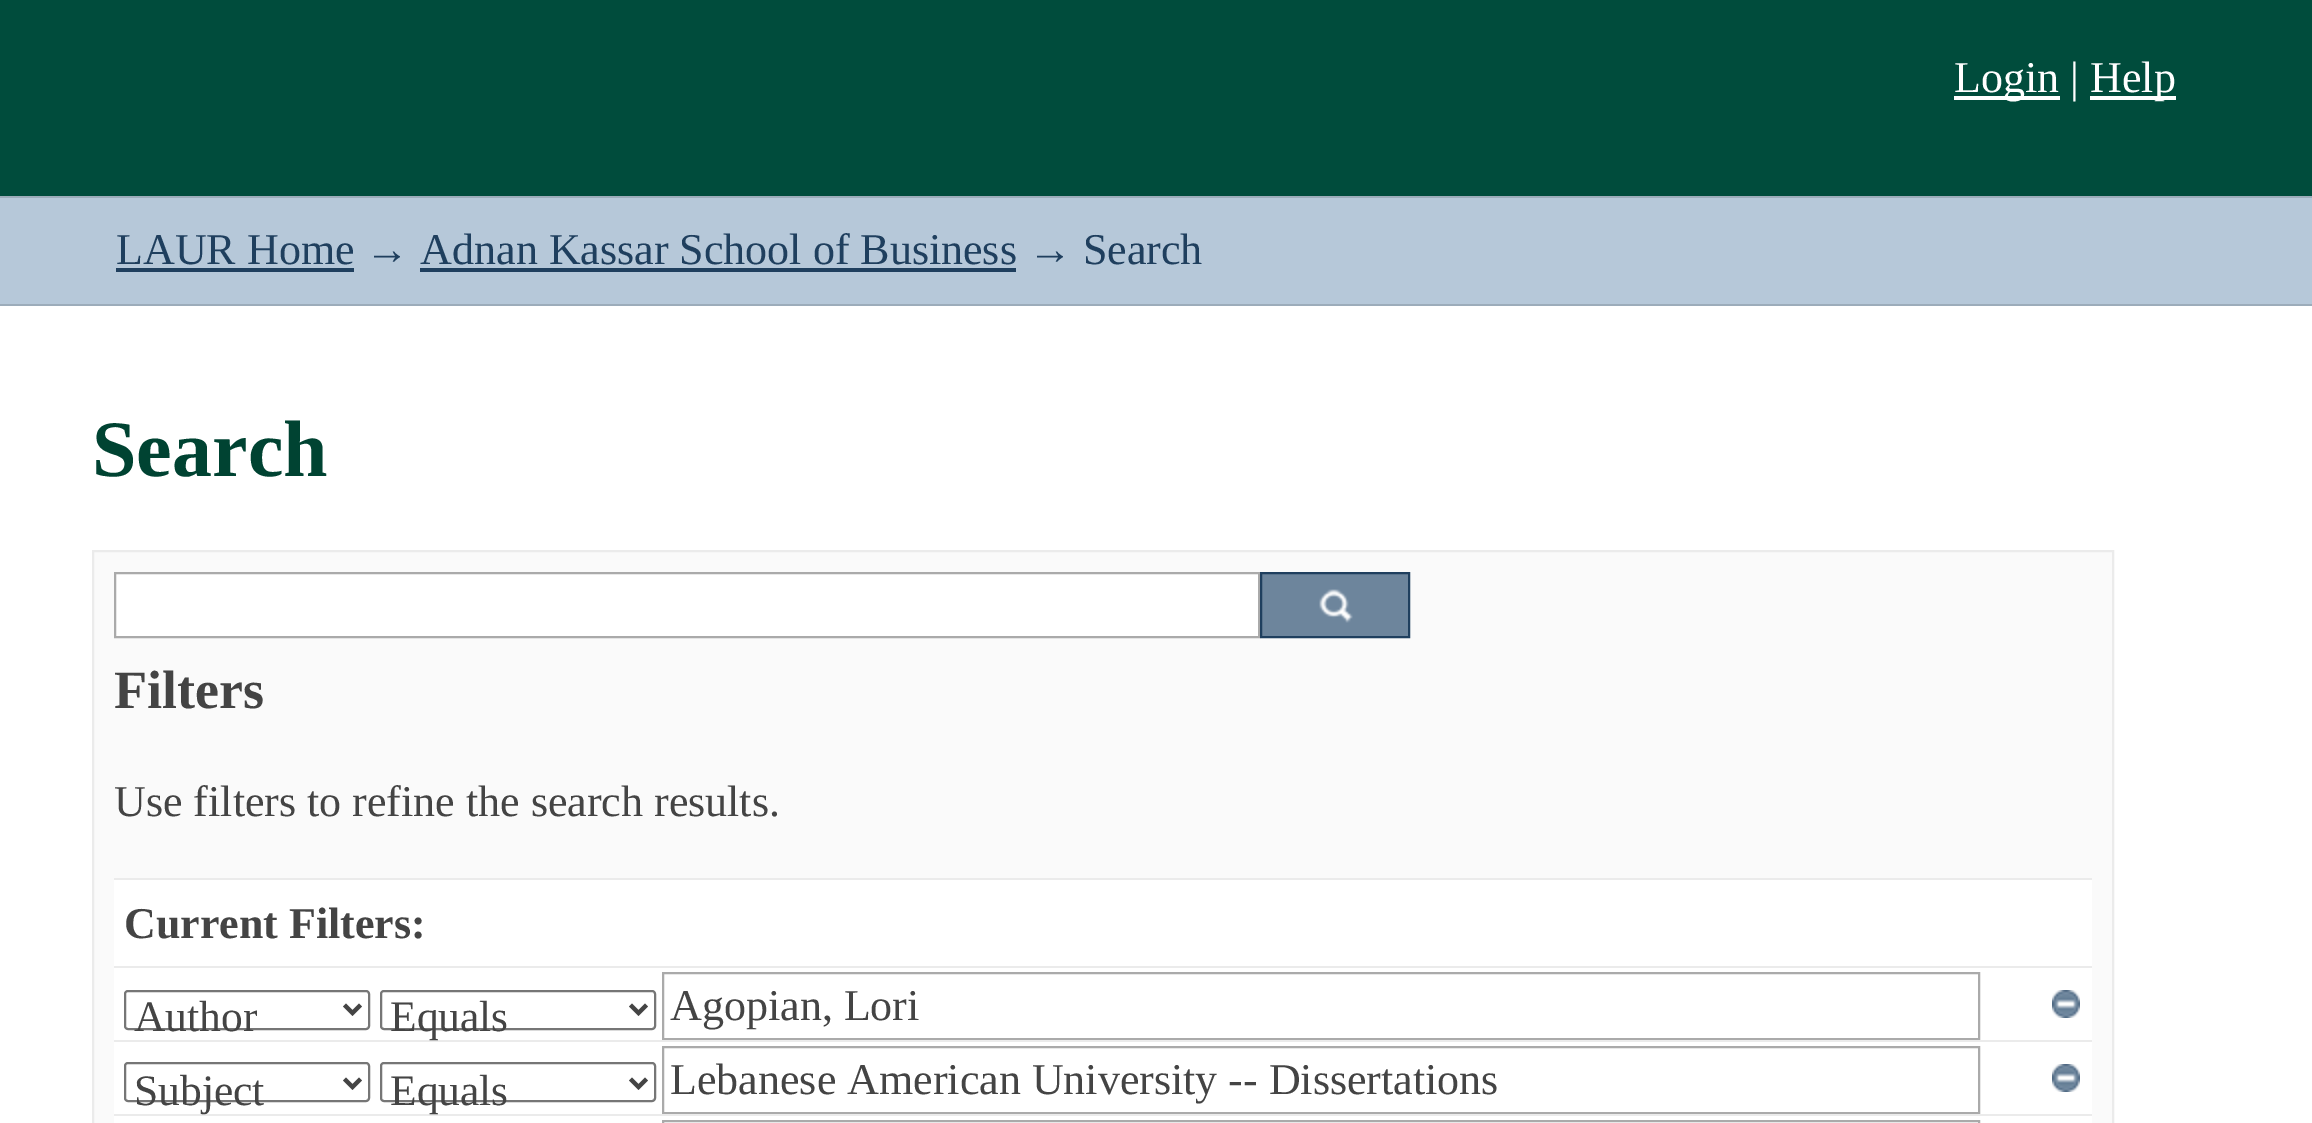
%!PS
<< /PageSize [2312 1123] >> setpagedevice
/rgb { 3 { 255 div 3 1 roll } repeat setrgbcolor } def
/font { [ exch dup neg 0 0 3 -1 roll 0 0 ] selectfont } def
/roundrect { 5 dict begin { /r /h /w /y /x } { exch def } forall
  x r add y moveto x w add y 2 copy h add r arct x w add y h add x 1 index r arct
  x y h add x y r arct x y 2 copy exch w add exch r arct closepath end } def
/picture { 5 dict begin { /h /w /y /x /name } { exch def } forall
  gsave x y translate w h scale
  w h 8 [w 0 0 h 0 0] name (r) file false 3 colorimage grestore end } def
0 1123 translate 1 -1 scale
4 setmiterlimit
255 255 255 rgb
0 0 2312 1123 rectfill
[
  [0 0 2312 196 0 76 60]
  [1954 96 106 4 255 255 255]
  [2090 96 86 4 255 255 255]
  [0 198 2312 106 182 200 217]
  [0 196 2312 2 156 172 186]
  [0 304 2312 2 156 172 186]
  [116 268 238 4 31 63 94]
  [420 268 596 4 31 63 94]
] { aload pop rgb rectfill } forall
250 250 250 rgb
93 551 moveto 2113 551 lineto 2113 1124 lineto 93 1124 lineto closepath gsave fill grestore
235 235 235 rgb
2 setlinewidth
stroke
255 255 255 rgb
115 573 moveto 1259 573 lineto 1259 637 lineto 115 637 lineto closepath gsave fill grestore
170 170 170 rgb
stroke
109 133 156 rgb
1262 574 146 62 rectfill
(img/1.rgb) 1319 589 34 34 picture
31 63 94 rgb
1261 573 148 64 rectstroke
[
  [114 880 1978 243 255 255 255]
  [114 878 1978 2 235 235 235]
  [114 966 1978 2 235 235 235]
] { aload pop rgb rectfill } forall
118 118 118 rgb
125 991 244 38 3 roundrect stroke
68 68 68 rgb
4 setlinewidth
344.5 1005 moveto 352.5 1013 lineto 360.5 1005 lineto stroke
118 118 118 rgb
2 setlinewidth
381 991 274 38 3 roundrect stroke
68 68 68 rgb
4 setlinewidth
630.5 1005 moveto 638.5 1013 lineto 646.5 1005 lineto stroke
170 170 170 rgb
2 setlinewidth
663 973 1316 66 rectstroke
(img/2.rgb) 2052 990 28 28 picture
235 235 235 rgb
114 1040 1978 2 rectfill
118 118 118 rgb
125 1063 244 38 3 roundrect stroke
68 68 68 rgb
4 setlinewidth
344.5 1079 moveto 352.5 1087 lineto 360.5 1079 lineto stroke
118 118 118 rgb
2 setlinewidth
381 1063 274 38 3 roundrect stroke
68 68 68 rgb
4 setlinewidth
630.5 1079 moveto 638.5 1087 lineto 646.5 1079 lineto stroke
170 170 170 rgb
2 setlinewidth
663 1047 1316 66 rectstroke
(img/2.rgb) 2052 1064 28 28 picture
235 235 235 rgb
114 1114 1978 2 rectfill
170 170 170 rgb
663 1121 1316 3 rectstroke
/LiberationSerif-Regular 44 font
255 255 255 rgb
1954 92 moveto (Login |) show
2090 92 moveto (Help) show
31 63 94 rgb
116 264 moveto (LAUR Home → Adnan Kassar School of Business → Search) show
/LiberationSerif-Bold 80 font
0 67 50 rgb
92 476 moveto (Search) show
/LiberationSerif-Bold 54 font
68 68 68 rgb
114 708 moveto (Filters) show
/LiberationSerif-Regular 44 font
114 816 moveto (Use filters to refine the search results.) show
/LiberationSerif-Bold 44 font
124 938 moveto (Current Filters:) show
/LiberationSerif-Regular 43.5 font
134 1031 moveto (Author) show
390 1031 moveto (Equals) show
/LiberationSerif-Regular 44 font
670 1020 moveto (Agopian, Lori) show
/LiberationSerif-Regular 43.5 font
134 1105 moveto (Subject) show
390 1105 moveto (Equals) show
/LiberationSerif-Regular 44 font
670 1094 moveto (Lebanese American University -- Dissertations) show
showpage
